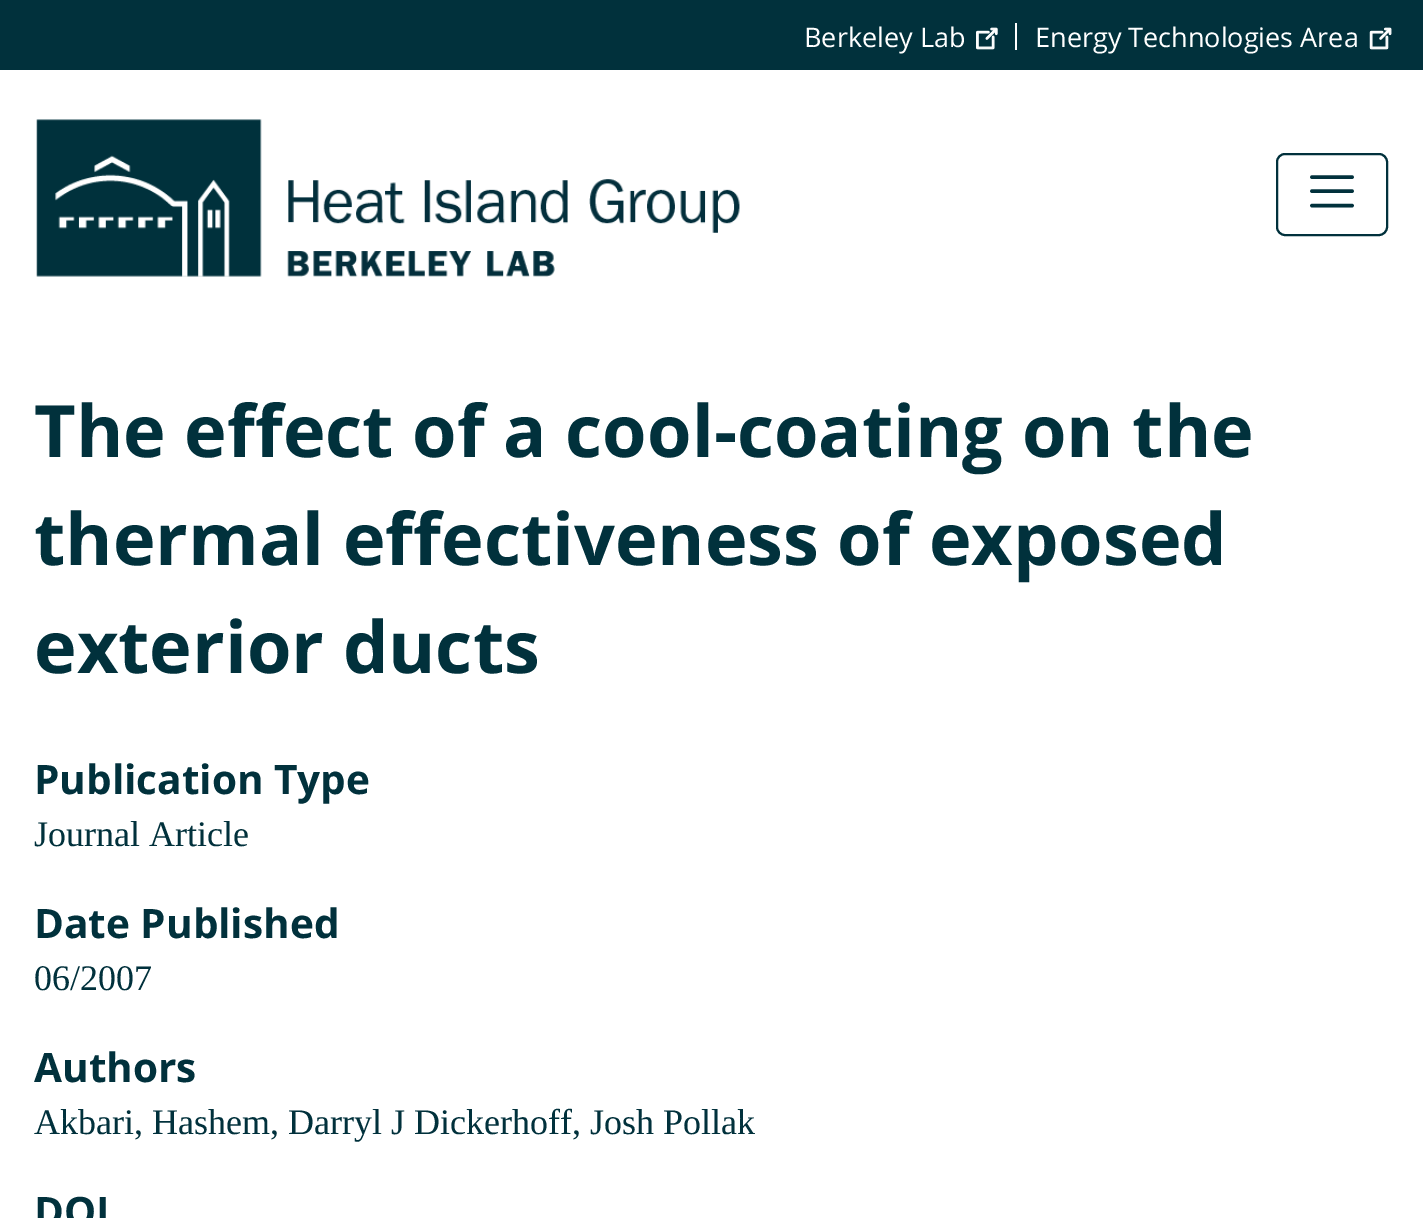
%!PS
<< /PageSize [1423 1218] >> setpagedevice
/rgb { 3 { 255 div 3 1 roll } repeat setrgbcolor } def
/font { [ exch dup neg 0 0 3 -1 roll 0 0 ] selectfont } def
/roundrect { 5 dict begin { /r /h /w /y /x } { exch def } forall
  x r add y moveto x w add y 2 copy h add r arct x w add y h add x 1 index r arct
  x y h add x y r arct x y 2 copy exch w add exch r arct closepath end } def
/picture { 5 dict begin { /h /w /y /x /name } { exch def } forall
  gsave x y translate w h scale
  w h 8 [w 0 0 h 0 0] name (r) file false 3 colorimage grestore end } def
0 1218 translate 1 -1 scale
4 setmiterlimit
255 255 255 rgb
0 0 1423 1218 rectfill
1 49 60 rgb
0 0 1423 70 rectfill
255 255 255 rgb
1015 23 2 27 rectfill
(img/1.rgb) 976 27 22 23 picture
(img/2.rgb) 1369 27 23 23 picture
(img/3.rgb) 36 119 704 158 picture
1 49 60 rgb
2 setlinewidth
1277 154 110 81 8 roundrect stroke
3.6 setlinewidth
1 setlinecap
1312 177 moveto 1352 177 lineto 1312 191 moveto 1352 191 lineto 1312 205.5 moveto 1352 205.5 lineto stroke
/OpenSans-Regular 27 font
255 255 255 rgb
804 47 moveto (Berkeley Lab) show
1035 47 moveto (Energy Technologies Area) show
/OpenSans-Bold 72 font
1 49 60 rgb
[
  [(The effect of a cool-coating on the) 34 457]
  [(thermal effectiveness of exposed) 34 565]
  [(exterior ducts) 34 673]
] { aload pop moveto show } forall
/OpenSans-Bold 40.5 font
34 794 moveto (Publication Type) show
/LiberationSerif-Regular 36 font
34 846 moveto (Journal Article) show
/OpenSans-Bold 40.5 font
34 938 moveto (Date Published) show
/LiberationSerif-Regular 36 font
34 990 moveto (06/2007) show
/OpenSans-Bold 40.5 font
34 1082 moveto (Authors) show
/LiberationSerif-Regular 36 font
[
  [(Akbari, Hashem) 34 1134]
  [(,) 270 1134]
  [(Darryl J Dickerhoff) 288 1134]
  [(,) 572 1134]
  [(Josh Pollak) 590 1134]
] { aload pop moveto show } forall
/OpenSans-Bold 40.5 font
34 1226 moveto (DOI) show
showpage
